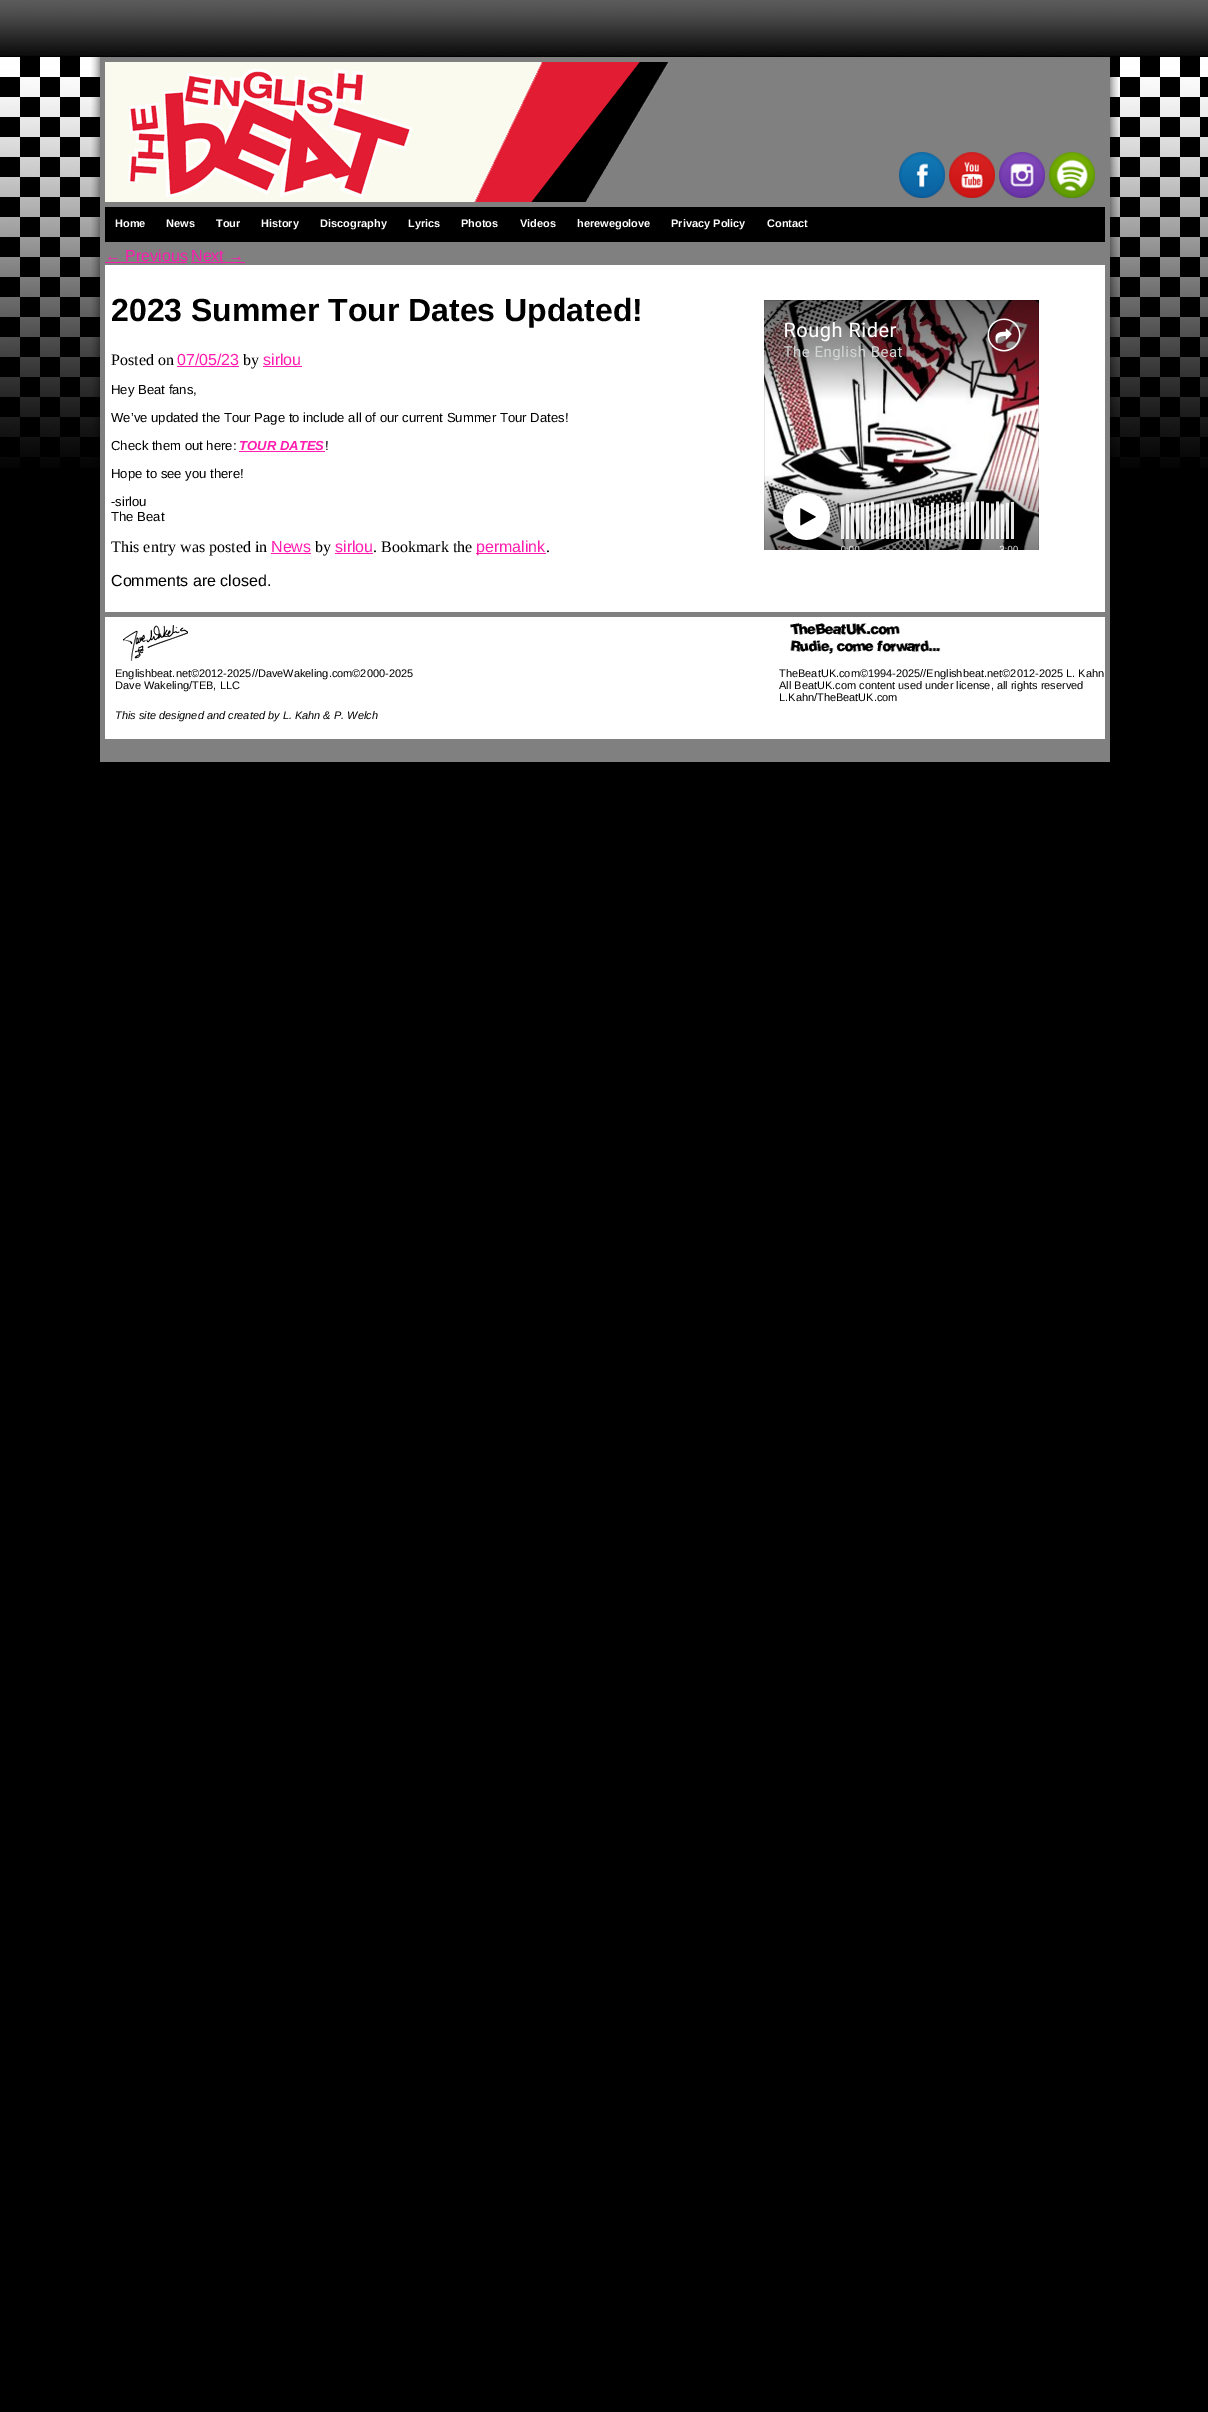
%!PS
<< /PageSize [1208 2412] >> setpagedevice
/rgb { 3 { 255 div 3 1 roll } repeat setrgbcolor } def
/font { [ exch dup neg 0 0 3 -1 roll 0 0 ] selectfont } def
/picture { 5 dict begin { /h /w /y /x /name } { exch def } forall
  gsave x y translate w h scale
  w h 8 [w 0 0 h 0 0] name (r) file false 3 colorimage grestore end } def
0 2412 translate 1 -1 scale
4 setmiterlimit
0 0 0 rgb
0 0 1208 2412 rectfill
(img/1.rgb) 0 0 1208 468 picture
(img/2.rgb) 91 57 1027 705 picture
(img/3.rgb) 105 62 564 140 picture
(img/4.rgb) 128 68 285 131 picture
(img/5.rgb) 899 152 46 46 picture
(img/6.rgb) 949 152 46 46 picture
(img/7.rgb) 999 152 46 46 picture
(img/8.rgb) 1049 152 46 46 picture
[
  [105 207 1000 35 0 0 0]
  [105 262 82 1 255 28 175]
  [191 262 54 1 255 28 175]
  [105 265 1000 347 255 255 255]
  [177 366 62 1 255 28 175]
  [263 366 39 1 255 28 175]
  [239 451 86 1 255 28 175]
  [271 553 40 1 255 28 175]
  [335 553 38 1 255 28 175]
  [476 553 70 1 255 28 175]
] { aload pop rgb rectfill } forall
(img/9.rgb) 764 300 275 250 picture
255 255 255 rgb
105 617 1000 122 rectfill
(img/10.rgb) 123 625 65 36 picture
(img/11.rgb) 790 623 151 31 picture
/LiberationSans-Bold 11 font
[
  [(Home) 115 227]
  [(News) 166 227]
  [(Tour) 216 227]
  [(History) 261 227]
  [(Discography) 320 227]
  [(Lyrics) 408 227]
  [(Photos) 461 227]
  [(Videos) 520 227]
  [(herewegolove) 577 227]
  [(Privacy Policy) 671 227]
  [(Contact) 767 227]
] { aload pop moveto show } forall
/LiberationSans-Regular 16 font
255 28 175 rgb
105 261 moveto (← Previous) show
191 261 moveto (Next →) show
/LiberationSans-Bold 32 font
0 0 0 rgb
111 321 moveto (2023 Summer Tour Dates Updated!) show
/LiberationSerif-Regular 16 font
111 365 moveto (Posted on) show
/LiberationSans-Regular 16 font
255 28 175 rgb
177 365 moveto (07/05/23) show
/LiberationSerif-Regular 16 font
0 0 0 rgb
243 365 moveto (by) show
/LiberationSans-Regular 16 font
255 28 175 rgb
263 365 moveto (sirlou) show
/LiberationSans-Regular 13.1 font
0 0 0 rgb
[
  [(Hey Beat fans,) 111 394]
  [(We’ve updated the Tour Page to include all of our current Summer Tour Dates!) 111 422]
  [(Check them out here:) 111 450]
] { aload pop moveto show } forall
/LiberationSans-BoldItalic 13.1 font
255 28 175 rgb
239 450 moveto (TOUR DATES) show
/LiberationSans-Regular 13.1 font
0 0 0 rgb
[
  [(!) 325 450]
  [(Hope to see you there!) 111 478]
  [(-sirlou) 111 506]
  [(The Beat) 111 521]
] { aload pop moveto show } forall
/LiberationSerif-Regular 16 font
111 552 moveto (This entry was posted in) show
/LiberationSans-Regular 16 font
255 28 175 rgb
271 552 moveto (News) show
/LiberationSerif-Regular 16 font
0 0 0 rgb
315 552 moveto (by) show
/LiberationSans-Regular 16 font
255 28 175 rgb
335 552 moveto (sirlou) show
/LiberationSerif-Regular 16 font
0 0 0 rgb
373 552 moveto (. Bookmark the) show
/LiberationSans-Regular 16 font
255 28 175 rgb
476 552 moveto (permalink) show
/LiberationSerif-Regular 16 font
0 0 0 rgb
546 552 moveto (.) show
/LiberationSans-Regular 16 font
111 586 moveto (Comments are closed.) show
/LiberationSans-Regular 11 font
115 677 moveto (Englishbeat.net©2012-2025//DaveWakeling.com©2000-2025) show
115 689 moveto (Dave Wakeling/TEB, LLC) show
/LiberationSans-Italic 11 font
115 719 moveto (This site designed and created by L. Kahn & P. Welch) show
/LiberationSans-Regular 11 font
[
  [(TheBeatUK.com©1994-2025//Englishbeat.net©2012-2025 L. Kahn) 779 677]
  [(All BeatUK.com content used under license, all rights reserved) 779 689]
  [(L.Kahn/TheBeatUK.com) 779 701]
] { aload pop moveto show } forall
showpage
